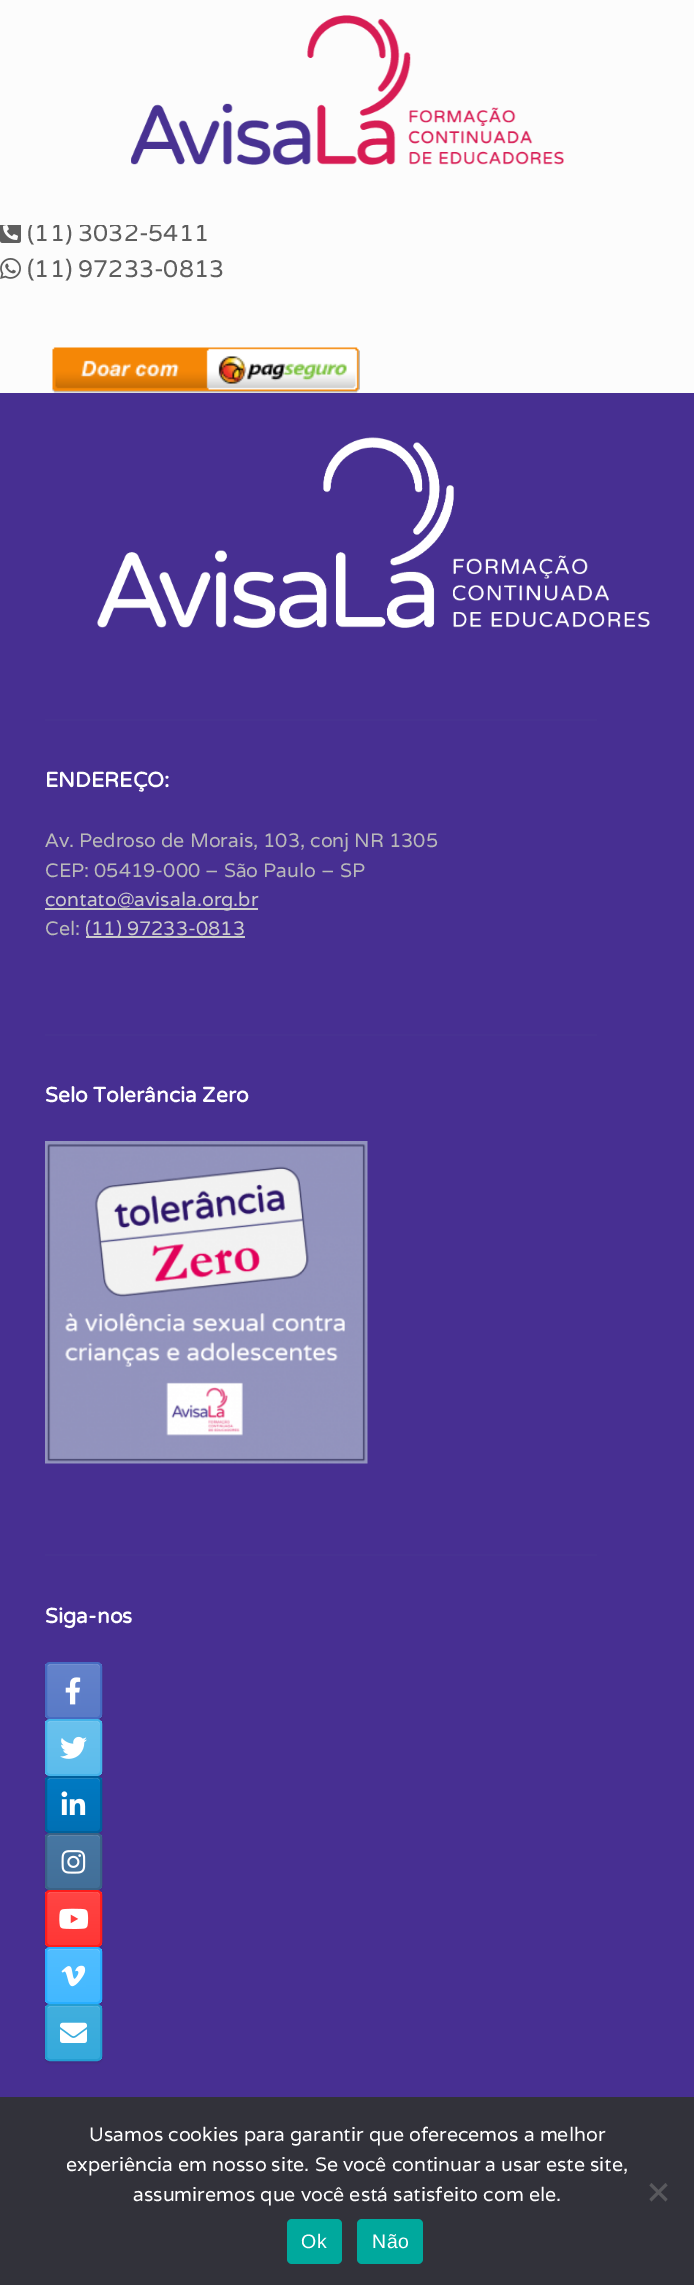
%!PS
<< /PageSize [694 2285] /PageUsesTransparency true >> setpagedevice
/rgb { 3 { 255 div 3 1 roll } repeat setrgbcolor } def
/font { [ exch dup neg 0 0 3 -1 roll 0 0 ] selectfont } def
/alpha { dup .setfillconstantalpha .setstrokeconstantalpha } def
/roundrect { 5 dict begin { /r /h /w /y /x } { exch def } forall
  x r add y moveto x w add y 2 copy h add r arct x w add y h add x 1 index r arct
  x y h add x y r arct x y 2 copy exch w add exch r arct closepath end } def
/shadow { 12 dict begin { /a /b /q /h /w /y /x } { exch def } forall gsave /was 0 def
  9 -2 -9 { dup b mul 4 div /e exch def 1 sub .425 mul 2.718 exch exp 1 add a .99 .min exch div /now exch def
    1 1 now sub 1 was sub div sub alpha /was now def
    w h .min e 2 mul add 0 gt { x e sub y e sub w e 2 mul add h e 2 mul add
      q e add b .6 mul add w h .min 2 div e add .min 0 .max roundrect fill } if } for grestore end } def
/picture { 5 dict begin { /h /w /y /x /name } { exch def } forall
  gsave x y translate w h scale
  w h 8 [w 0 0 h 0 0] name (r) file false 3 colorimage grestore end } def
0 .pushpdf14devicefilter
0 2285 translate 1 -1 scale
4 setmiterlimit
71 47 146 rgb
0 0 694 2285 rectfill
252 252 252 rgb
0 225 694 168 rectfill
(img/2.rgb) 0 225 21 18 picture
(img/3.rgb) 0 258 21 21 picture
(img/4.rgb) 52 347 308 46 picture
(img/5.rgb) 97 437 553 191 picture
[
  [45 719 552 2 72 50 146]
  [45 908 213 2 204 204 204]
  [86 936 159 2 204 204 204]
  [45 1034 552 2 72 50 146]
] { aload pop rgb rectfill } forall
(img/6.rgb) 45 1141 323 323 picture
45 1554 552 2 rectfill
0 0 0 rgb
45 1664 57 57 5 1 0.1 shadow
gsave
45 1662 57 57 5 roundrect clip newpath
gsave 45 1664 moveto 102 1664 lineto 102 1718 lineto 45 1718 lineto closepath clip newpath
<< /ShadingType 2 /ColorSpace /DeviceRGB /Coords [74 1718 74 1664] /Extend [true true] /Function << /FunctionType 2 /Domain [0 1] /C0 [0.349 0.478 0.78] /C1 [0.392 0.514 0.796] /N 1 >> >> shfill grestore
grestore
0.2 alpha
255 255 255 rgb
50 1665 moveto 90 1665 lineto 93 1665 100 1663 100 1668 curveto 100 1717 lineto 101 1717 101 1716 101 1715 curveto 101 1667 lineto 101 1665 100 1664 98 1664 curveto 50 1664 lineto 49 1664 48 1665 47 1666 curveto closepath fill
1 alpha
70 107 193 rgb
2 setlinewidth
46 1663 55 55 4 roundrect stroke
(img/7.rgb) 65 1677 16 28 picture
0 0 0 rgb
45 1721 57 57 5 1 0.1 shadow
gsave
45 1719 57 57 5 roundrect clip newpath
gsave 45 1721 moveto 102 1721 lineto 102 1775 lineto 45 1775 lineto closepath clip newpath
<< /ShadingType 2 /ColorSpace /DeviceRGB /Coords [74 1775 74 1721] /Extend [true true] /Function << /FunctionType 2 /Domain [0 1] /C0 [0.357 0.737 0.925] /C1 [0.412 0.761 0.933] /N 1 >> >> shfill grestore
grestore
0.2 alpha
255 255 255 rgb
50 1722 moveto 90 1722 lineto 93 1722 100 1720 100 1725 curveto 100 1774 lineto 101 1774 101 1773 101 1772 curveto 101 1724 lineto 101 1722 100 1721 98 1721 curveto 50 1721 lineto 49 1721 48 1722 47 1723 curveto closepath fill
1 alpha
68 179 233 rgb
46 1720 55 55 4 roundrect stroke
(img/8.rgb) 60 1736 27 23 picture
0 0 0 rgb
45 1778 57 57 5 1 0.1 shadow
gsave
45 1776 57 57 5 roundrect clip newpath
gsave 45 1778 moveto 102 1778 lineto 102 1832 lineto 45 1832 lineto closepath clip newpath
<< /ShadingType 2 /ColorSpace /DeviceRGB /Coords [74 1832 74 1778] /Extend [true true] /Function << /FunctionType 2 /Domain [0 1] /C0 [0 0.439 0.706] /C1 [0 0.478 0.765] /N 1 >> >> shfill grestore
grestore
0.2 alpha
255 255 255 rgb
50 1779 moveto 90 1779 lineto 93 1779 100 1777 100 1782 curveto 100 1831 lineto 101 1831 101 1830 101 1829 curveto 101 1781 lineto 101 1779 100 1778 98 1778 curveto 50 1778 lineto 49 1778 48 1779 47 1780 curveto closepath fill
1 alpha
0 96 155 rgb
46 1777 55 55 4 roundrect stroke
(img/9.rgb) 61 1791 25 24 picture
0 0 0 rgb
45 1835 57 57 5 1 0.1 shadow
gsave
45 1833 57 57 5 roundrect clip newpath
gsave 45 1835 moveto 102 1835 lineto 102 1889 lineto 45 1889 lineto closepath clip newpath
<< /ShadingType 2 /ColorSpace /DeviceRGB /Coords [74 1889 74 1835] /Extend [true true] /Function << /FunctionType 2 /Domain [0 1] /C0 [0.259 0.435 0.596] /C1 [0.278 0.467 0.639] /N 1 >> >> shfill grestore
grestore
0.2 alpha
255 255 255 rgb
50 1836 moveto 90 1836 lineto 93 1836 100 1834 100 1839 curveto 100 1888 lineto 101 1888 101 1887 101 1886 curveto 101 1838 lineto 101 1836 100 1835 98 1835 curveto 50 1835 lineto 49 1835 48 1836 47 1837 curveto closepath fill
1 alpha
58 98 134 rgb
46 1834 55 55 4 roundrect stroke
(img/10.rgb) 61 1850 25 24 picture
0 0 0 rgb
45 1892 57 57 5 1 0.1 shadow
gsave
45 1890 57 57 5 roundrect clip newpath
gsave 45 1892 moveto 102 1892 lineto 102 1946 lineto 45 1946 lineto closepath clip newpath
<< /ShadingType 2 /ColorSpace /DeviceRGB /Coords [74 1946 74 1892] /Extend [true true] /Function << /FunctionType 2 /Domain [0 1] /C0 [1 0.212 0.208] /C1 [1 0.271 0.267] /N 1 >> >> shfill grestore
grestore
0.2 alpha
255 255 255 rgb
50 1893 moveto 90 1893 lineto 93 1893 100 1891 100 1896 curveto 100 1945 lineto 101 1945 101 1944 101 1943 curveto 101 1895 lineto 101 1893 100 1892 98 1892 curveto 50 1892 lineto 49 1892 48 1893 47 1894 curveto closepath fill
1 alpha
255 29 27 rgb
46 1891 55 55 4 roundrect stroke
(img/11.rgb) 59 1908 30 21 picture
0 0 0 rgb
45 1949 57 57 5 1 0.1 shadow
gsave
45 1947 57 57 5 roundrect clip newpath
gsave 45 1949 moveto 102 1949 lineto 102 2003 lineto 45 2003 lineto closepath clip newpath
<< /ShadingType 2 /ColorSpace /DeviceRGB /Coords [74 2003 74 1949] /Extend [true true] /Function << /FunctionType 2 /Domain [0 1] /C0 [0.259 0.722 1] /C1 [0.318 0.745 1] /N 1 >> >> shfill grestore
grestore
0.25 alpha
255 255 255 rgb
50 1950 moveto 90 1950 lineto 93 1950 100 1948 100 1953 curveto 100 2002 lineto 101 2002 101 2001 101 2000 curveto 101 1952 lineto 101 1950 100 1949 98 1949 curveto 50 1949 lineto 49 1949 48 1950 47 1951 curveto closepath fill
1 alpha
40 174 255 rgb
46 1948 55 55 4 roundrect stroke
(img/12.rgb) 61 1965 25 22 picture
0 0 0 rgb
45 2006 57 57 5 1 0.1 shadow
gsave
45 2004 57 57 5 roundrect clip newpath
gsave 45 2006 moveto 102 2006 lineto 102 2060 lineto 45 2060 lineto closepath clip newpath
<< /ShadingType 2 /ColorSpace /DeviceRGB /Coords [74 2060 74 2006] /Extend [true true] /Function << /FunctionType 2 /Domain [0 1] /C0 [0.204 0.667 0.863] /C1 [0.255 0.686 0.871] /N 1 >> >> shfill grestore
grestore
0.2 alpha
255 255 255 rgb
50 2007 moveto 90 2007 lineto 93 2007 100 2005 100 2010 curveto 100 2059 lineto 101 2059 101 2058 101 2057 curveto 101 2009 lineto 101 2007 100 2006 98 2006 curveto 50 2006 lineto 49 2006 48 2007 47 2008 curveto closepath fill
1 alpha
36 158 210 rgb
46 2005 55 55 4 roundrect stroke
(img/13.rgb) 60 2022 27 21 picture
50 50 58 rgb
0 2097 694 188 rectfill
89 89 93 rgb
665.5 2183 moveto 667.5 2185.5 lineto 651.5 2201.5 lineto 649.5 2199 lineto closepath fill
649.5 2185.5 moveto 651.5 2183 lineto 667.5 2199 lineto 665.5 2201.5 lineto closepath fill
0 169 157 rgb
287 2219 55 45 5 roundrect fill
357 2219 66 45 5 roundrect fill
/Varela-Regular 24 font
94 94 94 rgb
27 241 moveto (\(11\) 3032-5411) show
252 252 252 rgb
0 0 694 225 rectfill
(img/1.rgb) 131 15 433 150 picture
94 94 94 rgb
27 277 moveto (\(11\) 97233-0813) show
/VarelaRound-Bold 21 font
255 255 255 rgb
45 787 moveto (ENDEREÇO:) show
/Varela-Regular 19.5 font
185 185 185 rgb
45 847 moveto (Av. Pedroso de Morais, 103, conj NR 1305) show
45 877 moveto (CEP: 05419-000 – São Paulo – SP) show
204 204 204 rgb
45 906 moveto (contato@avisala.org.br) show
185 185 185 rgb
45 935 moveto (Cel:) show
204 204 204 rgb
85 935 moveto (\(11\) 97233-0813) show
/VarelaRound-Bold 21 font
255 255 255 rgb
45 1102 moveto (Selo Tolerância Zero) show
45 1623 moveto (Siga-nos) show
/Varela-Regular 19.5 font
[
  [(Usamos cookies para garantir que oferecemos a melhor) 89 2141]
  [(experiência em nosso site. Se você continuar a usar este site,) 66 2171]
  [(assumiremos que você está satisfeito com ele.) 133 2201]
] { aload pop moveto show } forall
/LiberationSans-Regular 19.5 font
301 2248 moveto 0.5 0 (Ok) ashow
372 2248 moveto 0.5 0 (Não) ashow
.poppdf14devicefilter showpage
